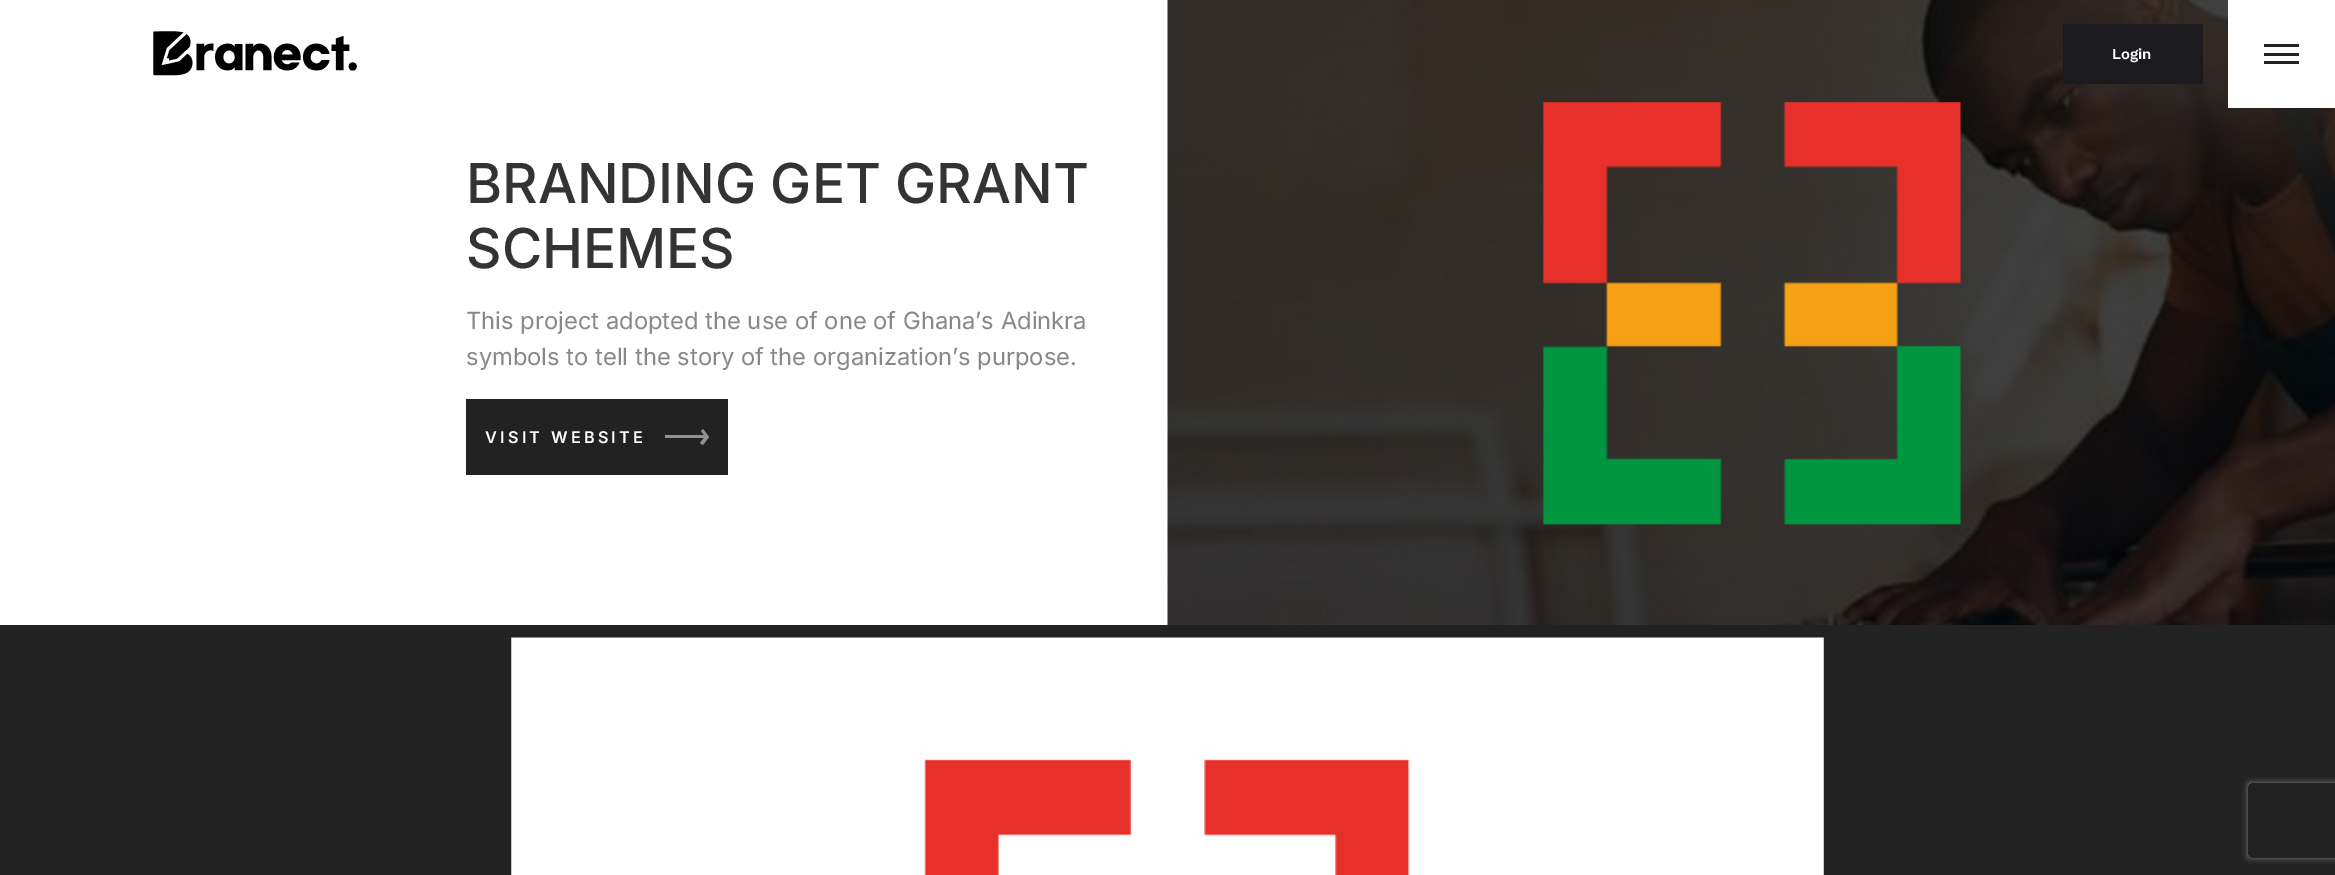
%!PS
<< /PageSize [2335 875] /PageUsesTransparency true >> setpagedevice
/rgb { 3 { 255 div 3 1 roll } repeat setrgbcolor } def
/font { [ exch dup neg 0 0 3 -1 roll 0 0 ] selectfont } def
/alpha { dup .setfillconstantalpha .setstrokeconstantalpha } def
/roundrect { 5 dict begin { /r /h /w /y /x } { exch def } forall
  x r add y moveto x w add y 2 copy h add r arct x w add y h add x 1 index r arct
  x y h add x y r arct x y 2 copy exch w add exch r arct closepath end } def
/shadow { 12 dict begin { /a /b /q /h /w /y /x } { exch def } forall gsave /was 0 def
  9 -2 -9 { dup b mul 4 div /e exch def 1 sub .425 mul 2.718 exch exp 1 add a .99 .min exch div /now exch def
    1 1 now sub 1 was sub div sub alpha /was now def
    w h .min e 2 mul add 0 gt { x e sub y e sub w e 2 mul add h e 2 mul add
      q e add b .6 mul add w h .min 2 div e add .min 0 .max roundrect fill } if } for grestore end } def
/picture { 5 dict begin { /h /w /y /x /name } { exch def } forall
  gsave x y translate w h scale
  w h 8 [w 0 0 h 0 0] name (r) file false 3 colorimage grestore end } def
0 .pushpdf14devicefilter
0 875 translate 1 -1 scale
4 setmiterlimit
255 255 255 rgb
0 0 2335 875 rectfill
(img/1.rgb) 153 31 204 45 picture
(img/2.rgb) 1167 0 1168 625 picture
[
  [2063 24 140 60 26 26 31]
  [2228 0 107 108 255 255 255]
  [2264 44 35 3 34 34 34]
  [2264 53 35 3 34 34 34]
  [2264 61 35 3 34 34 34]
  [466 399 262 76 34 34 34]
] { aload pop rgb rectfill } forall
145 145 145 rgb
703 429 moveto 709 437 lineto 703 445 lineto 700 443 lineto 704 438 lineto 665 438 lineto 665 435 lineto 704 435 lineto 701 431 lineto closepath eofill
34 34 34 rgb
0 625 2335 250 rectfill
(img/3.rgb) 511 637 1313 238 picture
gsave
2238 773 moveto 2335 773 lineto 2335 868 lineto 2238 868 lineto closepath 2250.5 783 moveto 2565.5 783 lineto 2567 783 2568 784 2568 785.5 curveto 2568 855.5 lineto 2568 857 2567 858 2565.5 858 curveto 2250.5 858 lineto 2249 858 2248 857 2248 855.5 curveto 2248 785.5 lineto 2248 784 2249 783 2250.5 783 curveto closepath eoclip newpath
128 128 128 rgb
2248 783 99 75 2.5 3 1 shadow
grestore
/WorkSans-SemiBold 15 font
255 255 255 rgb
2112 59 moveto (Login) show
/Inter-Medium 55 font
51 51 51 rgb
466 203 moveto (BRANDING GET GRANT) show
466 268 moveto (SCHEMES) show
/Inter-Regular 23.75 font
136 136 136 rgb
466 329 moveto (This project adopted the use of one of Ghana’s Adinkra) show
466 365 moveto (symbols to tell the story of the organization’s purpose.) show
/Inter-SemiBold 16.25 font
255 255 255 rgb
485 443 moveto 3.25 0 (VISIT WEBSITE) ashow
.poppdf14devicefilter showpage
